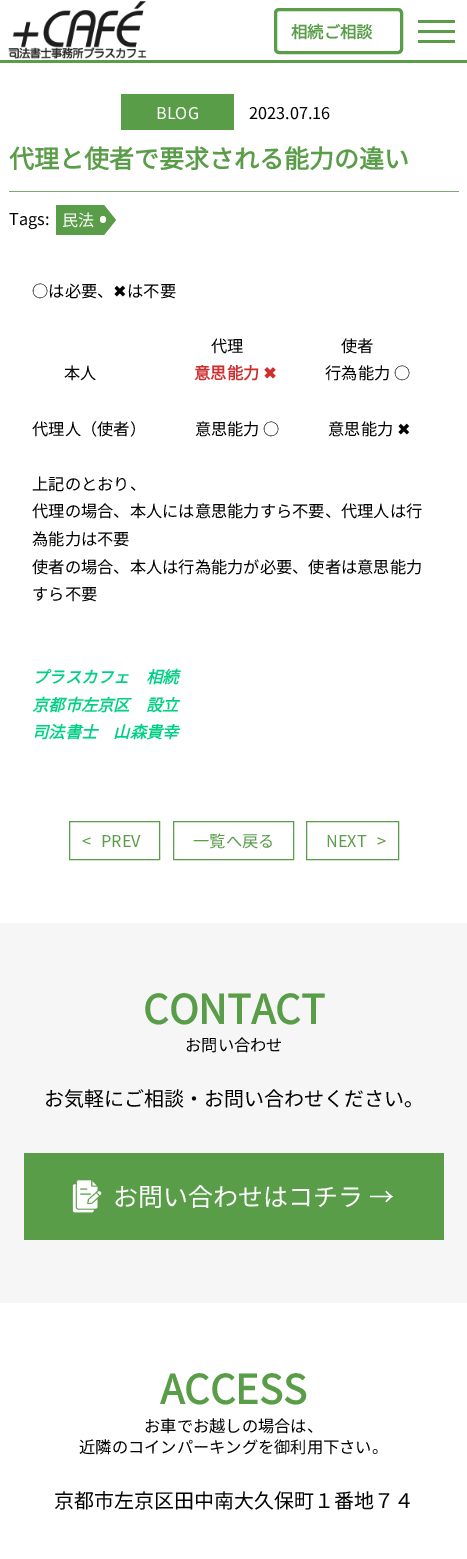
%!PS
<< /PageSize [467 1559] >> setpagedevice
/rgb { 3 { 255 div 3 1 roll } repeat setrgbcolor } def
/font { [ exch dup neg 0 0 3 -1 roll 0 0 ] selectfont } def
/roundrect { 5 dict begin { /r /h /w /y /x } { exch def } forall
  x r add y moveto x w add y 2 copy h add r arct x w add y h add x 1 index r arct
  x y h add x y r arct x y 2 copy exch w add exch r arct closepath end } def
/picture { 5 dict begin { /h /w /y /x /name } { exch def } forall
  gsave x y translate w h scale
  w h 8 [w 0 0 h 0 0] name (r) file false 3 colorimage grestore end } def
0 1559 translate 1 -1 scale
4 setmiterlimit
255 255 255 rgb
0 0 467 1559 rectfill
89 157 72 rgb
0 60 467 3 rectfill
(img/1.rgb) 8 1 139 58 picture
3 setlinewidth
275.5 9.5 126 43 3.5 roundrect stroke
[
  [418 20 37 3 89 157 72]
  [418 30 37 3 89 157 72]
  [418 40 37 3 89 157 72]
  [9 191 450 1 127 167 117]
  [121 94 113 36 89 157 72]
  [56 205 48 30 89 157 72]
] { aload pop rgb rectfill } forall
104 235 moveto 104 205 lineto 116 220 lineto closepath fill
255 255 255 rgb
100 216 6 7 3 roundrect fill
89 157 72 rgb
1 setlinewidth
69.5 821.5 90 38 rectstroke
173.5 821.5 120 38 rectstroke
306.5 821.5 92 38 rectstroke
246 246 246 rgb
0 923 467 380 rectfill
89 157 72 rgb
24 1153 420 87 rectfill
(img/2.rgb) 72 1180 30 33 picture
/NotoSansJP-Bold 16.25 font
291 38 moveto (相続ご相談) show
/NotoSansJP-Regular 16.25 font
255 255 255 rgb
156 119 moveto (BLOG) show
1 1 1 rgb
249 119 moveto (2023.07.16) show
/NotoSansJP-Bold 25 font
89 157 72 rgb
9 168 moveto (代理と使者で要求される能力の違い) show
/NotoSansJP-Regular 16.25 font
1 1 1 rgb
9 225 moveto (Tags:) show
/NotoSansJP-Regular 16 font
255 255 255 rgb
62 226 moveto (民法) show
/NotoSansJP-Regular 16.25 font
1 1 1 rgb
32 297 moveto (○は必要、) show
/DejaVuSans-Regular 16.25 font
113 297 moveto (✖) show
/NotoSansJP-Regular 16.25 font
[
  [(は不要) 127 297]
  [(代理　　　　　　使者) 211 352]
  [(本人) 64 379]
] { aload pop moveto show } forall
/NotoSansJP-Bold 16.25 font
207 46 46 rgb
194 379 moveto (意思能力) show
/DejaVuSans-Bold 16.25 font
263 379 moveto (✖) show
/NotoSansJP-Regular 16.25 font
1 1 1 rgb
325 379 moveto (行為能力 ○) show
32 435 moveto (代理人（使者）　　　意思能力 ○　　　意思能力) show
/DejaVuSans-Regular 16.25 font
397 435 moveto (✖) show
/NotoSansJP-Regular 16.25 font
[
  [(上記のとおり、) 32 490]
  [(代理の場合、本人には意思能力すら不要、代理人は行) 32 517]
  [(為能力は不要) 32 545]
  [(使者の場合、本人は行為能力が必要、使者は意思能力) 32 573]
  [(すら不要) 32 600]
] { aload pop moveto show } forall
/NotoSansJP-BoldItalic 16.25 font
0 208 132 rgb
[
  [(プラスカフェ　相続) 32 683]
  [(京都市左京区　設立) 32 711]
  [(司法書士　山森貴幸) 32 738]
] { aload pop moveto show } forall
/NotoSansJP-Regular 16.25 font
89 157 72 rgb
[
  [(<) 82 847]
  [(PREV) 101 847]
  [(一覧へ戻る) 193 847]
  [(NEXT) 326 847]
  [(>) 377 847]
] { aload pop moveto show } forall
/NotoSansJP-Bold 40 font
143 1024 moveto (CONTACT) show
/NotoSansJP-Regular 16.25 font
1 1 1 rgb
185 1051 moveto (お問い合わせ) show
/NotoSansJP-Regular 20 font
44 1106 moveto (お気軽にご相談・お問い合わせください。) show
/NotoSansJP-Regular 25 font
255 255 255 rgb
113 1206 moveto (お問い合わせはコチラ →) show
/NotoSansJP-Bold 40 font
89 157 72 rgb
160 1404 moveto (ACCESS) show
/NotoSansJP-Regular 16.25 font
1 1 1 rgb
144 1432 moveto (お車でお越しの場合は、) show
79 1453 moveto (近隣のコインパーキングを御利用下さい。) show
/NotoSansJP-Regular 20 font
54 1508 moveto (京都市左京区田中南大久保町１番地７４) show
showpage
